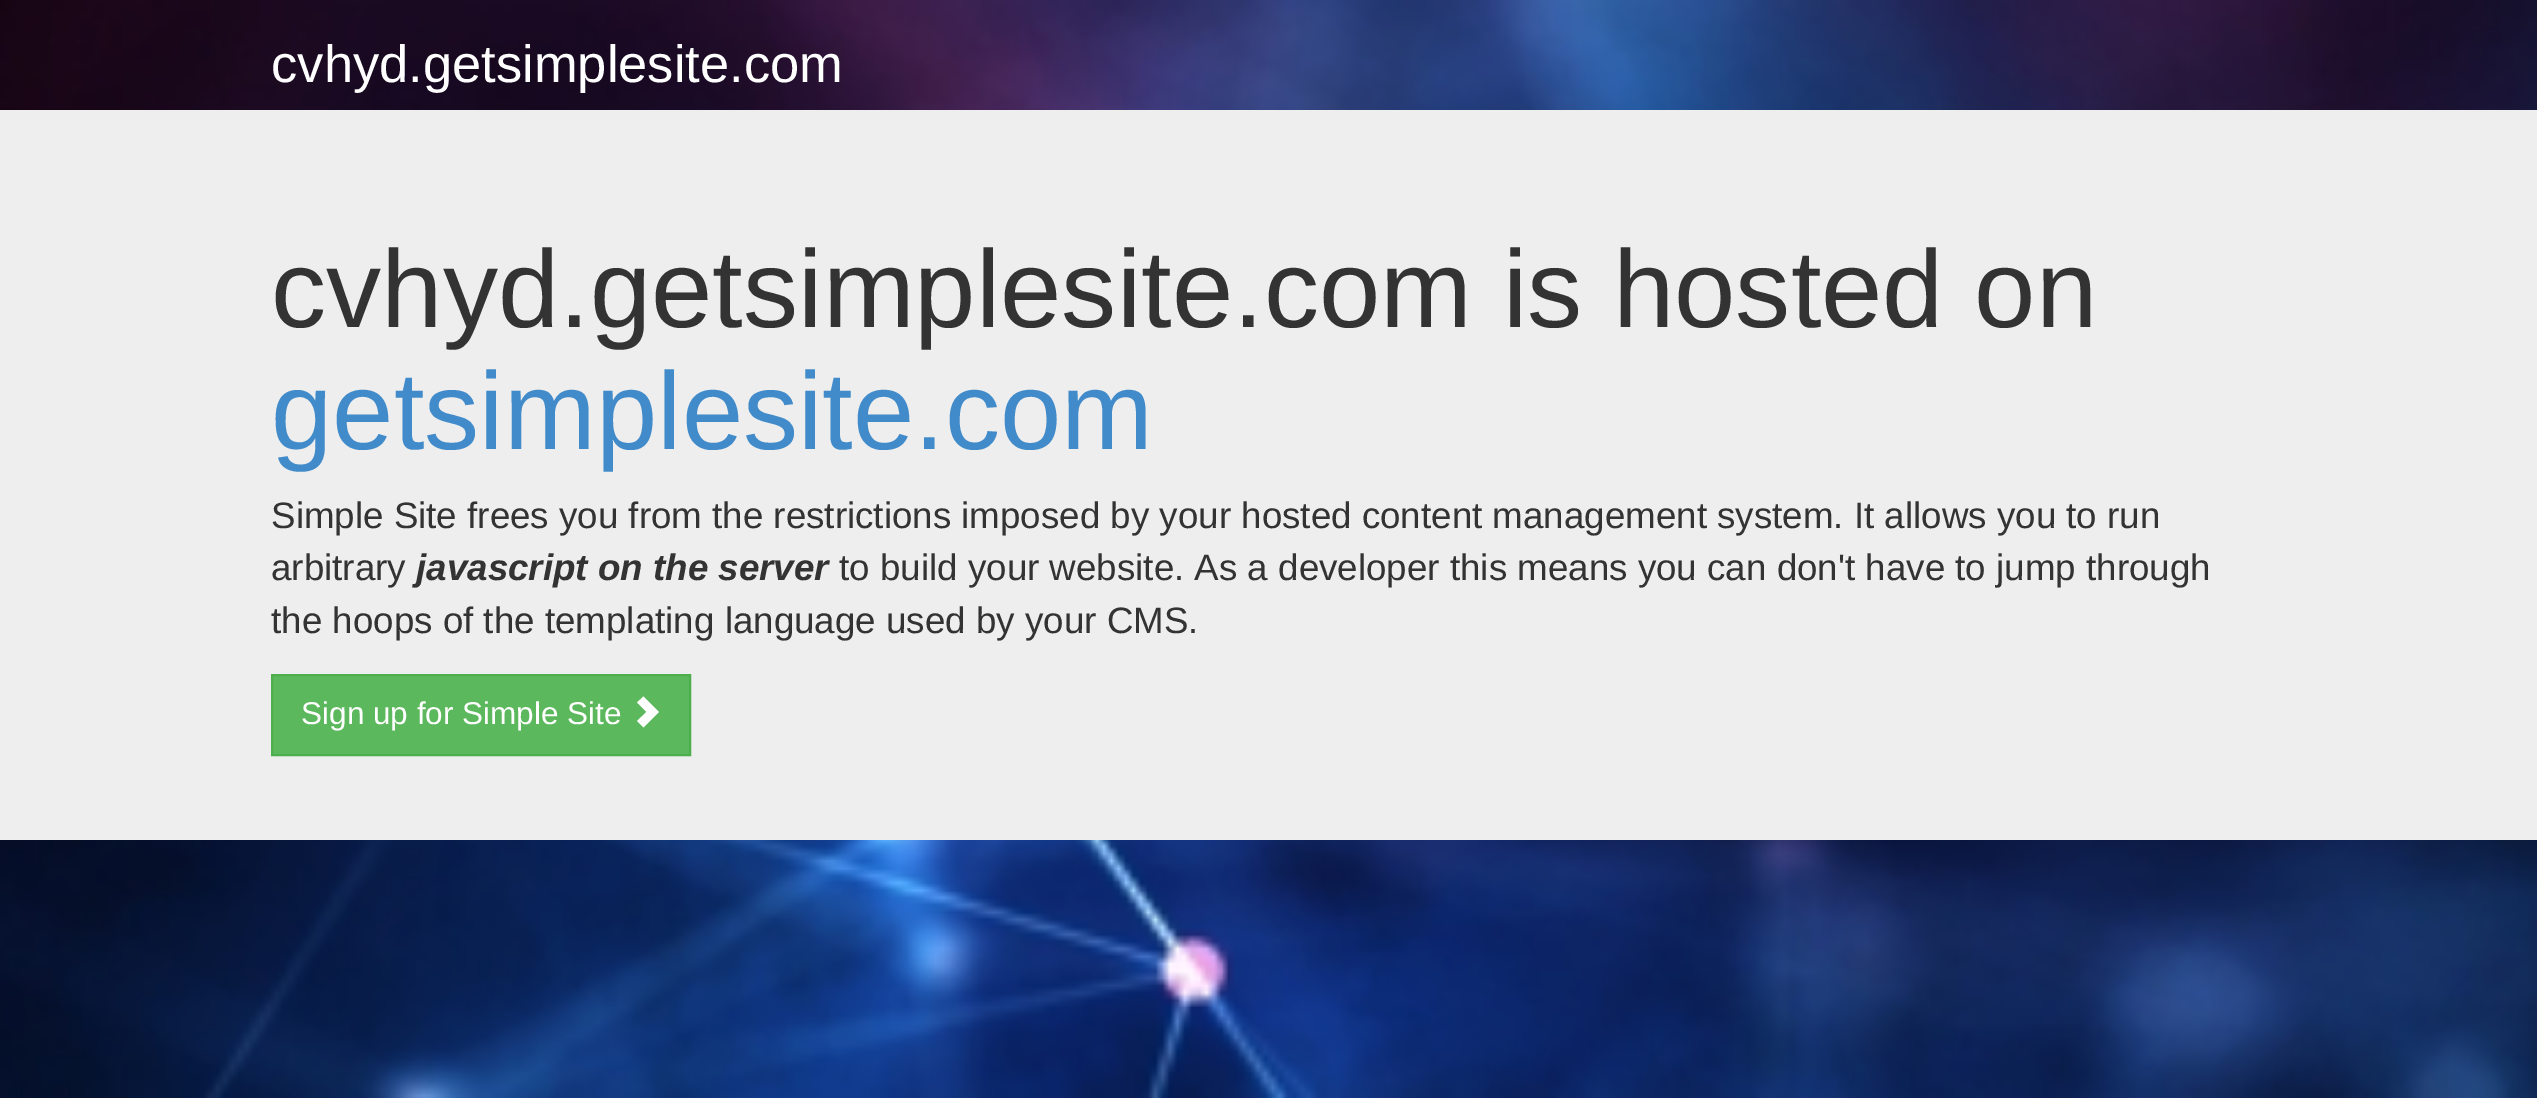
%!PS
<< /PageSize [2537 1098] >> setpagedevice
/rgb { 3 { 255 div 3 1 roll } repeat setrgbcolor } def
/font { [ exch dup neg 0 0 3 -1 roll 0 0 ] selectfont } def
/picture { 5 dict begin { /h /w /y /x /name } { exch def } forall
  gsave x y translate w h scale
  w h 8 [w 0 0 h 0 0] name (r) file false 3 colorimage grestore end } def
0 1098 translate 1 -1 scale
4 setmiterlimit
255 255 255 rgb
0 0 2537 1098 rectfill
(img/1.rgb) 0 0 2537 1098 picture
238 238 238 rgb
0 110 2537 730 rectfill
92 184 92 rgb
272 675 moveto 690 675 lineto 690 755 lineto 272 755 lineto closepath gsave fill grestore
76 174 76 rgb
2 setlinewidth
stroke
255 255 255 rgb
637 721 moveto 646.5 712 lineto 637 702.5 lineto 643.5 696.5 lineto 659 712 lineto 643.5 727.5 lineto closepath fill
/LiberationSans-Regular 52.5 font
271 82 moveto (cvhyd.getsimplesite.com) show
/LiberationSans-Regular 110.25 font
51 51 51 rgb
271 327 moveto (cvhyd.getsimplesite.com is hosted on) show
66 139 202 rgb
271 449 moveto (getsimplesite.com) show
/LiberationSans-Regular 36.75 font
51 51 51 rgb
271 528 moveto (Simple Site frees you from the restrictions imposed by your hosted content management system. It allows you to run) show
271 580 moveto (arbitrary) show
/LiberationSans-BoldItalic 36.75 font
416 580 moveto (javascript on the server) show
/LiberationSans-Regular 36.75 font
839 580 moveto (to build your website. As a developer this means you can don't have to jump through) show
271 633 moveto (the hoops of the templating language used by your CMS.) show
/LiberationSans-Regular 31.5 font
255 255 255 rgb
301 724 moveto (Sign up for Simple Site) show
showpage
